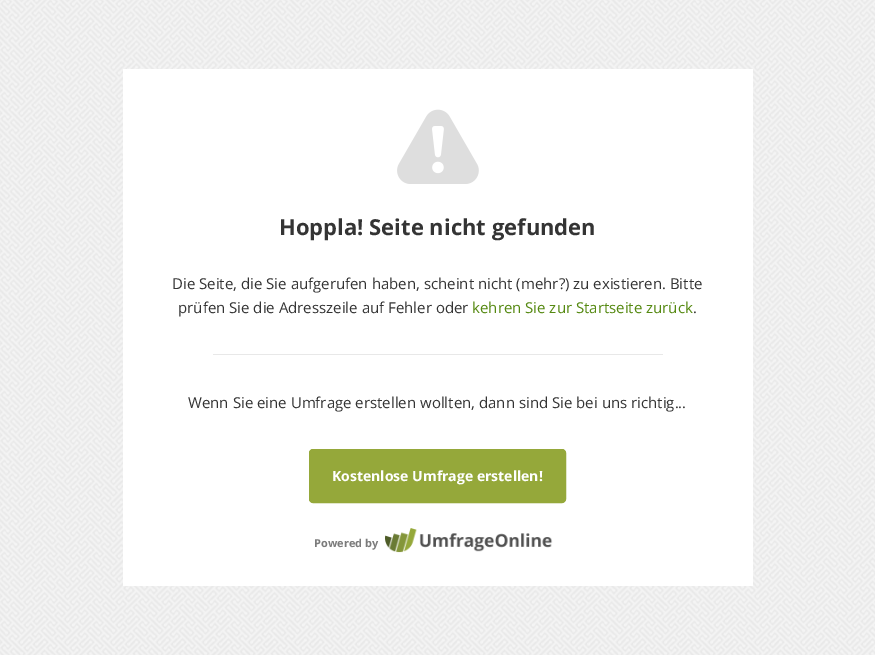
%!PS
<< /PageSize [875 655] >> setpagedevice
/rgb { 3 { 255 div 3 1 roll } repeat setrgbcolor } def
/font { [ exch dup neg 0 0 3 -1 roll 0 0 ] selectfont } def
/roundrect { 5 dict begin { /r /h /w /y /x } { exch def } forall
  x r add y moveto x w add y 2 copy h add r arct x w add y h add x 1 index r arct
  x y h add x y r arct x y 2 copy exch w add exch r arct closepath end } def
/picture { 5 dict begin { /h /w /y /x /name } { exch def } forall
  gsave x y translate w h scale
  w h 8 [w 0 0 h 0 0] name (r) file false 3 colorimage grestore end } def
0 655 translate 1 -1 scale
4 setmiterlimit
255 255 255 rgb
0 0 875 655 rectfill
(img/1.rgb) 0 0 875 655 picture
123 69 630 517 rectfill
(img/2.rgb) 397 109 82 75 picture
232 232 232 rgb
213 354 450 1 rectfill
149 168 58 rgb
309.5 449.5 256 53 3.5 roundrect gsave fill grestore
stroke
(img/3.rgb) 385 528 168 25 picture
/OpenSans-Bold 22 font
52 52 52 rgb
279 235 moveto (Hoppla! Seite nicht gefunden) show
/OpenSans-Regular 15 font
172 289 moveto (Die Seite, die Sie aufgerufen haben, scheint nicht \(mehr?\) zu existieren. Bitte) show
178 313 moveto (prüfen Sie die Adresszeile auf Fehler oder) show
85 137 17 rgb
472 313 moveto (kehren Sie zur Startseite zurück) show
52 52 52 rgb
693 313 moveto (.) show
188 408 moveto (Wenn Sie eine Umfrage erstellen wollten, dann sind Sie bei uns richtig...) show
/OpenSans-Bold 14 font
255 255 255 rgb
332 481 moveto (Kostenlose Umfrage erstellen!) show
/OpenSans-Bold 11 font
123 123 123 rgb
314 547 moveto (Powered by) show
showpage
